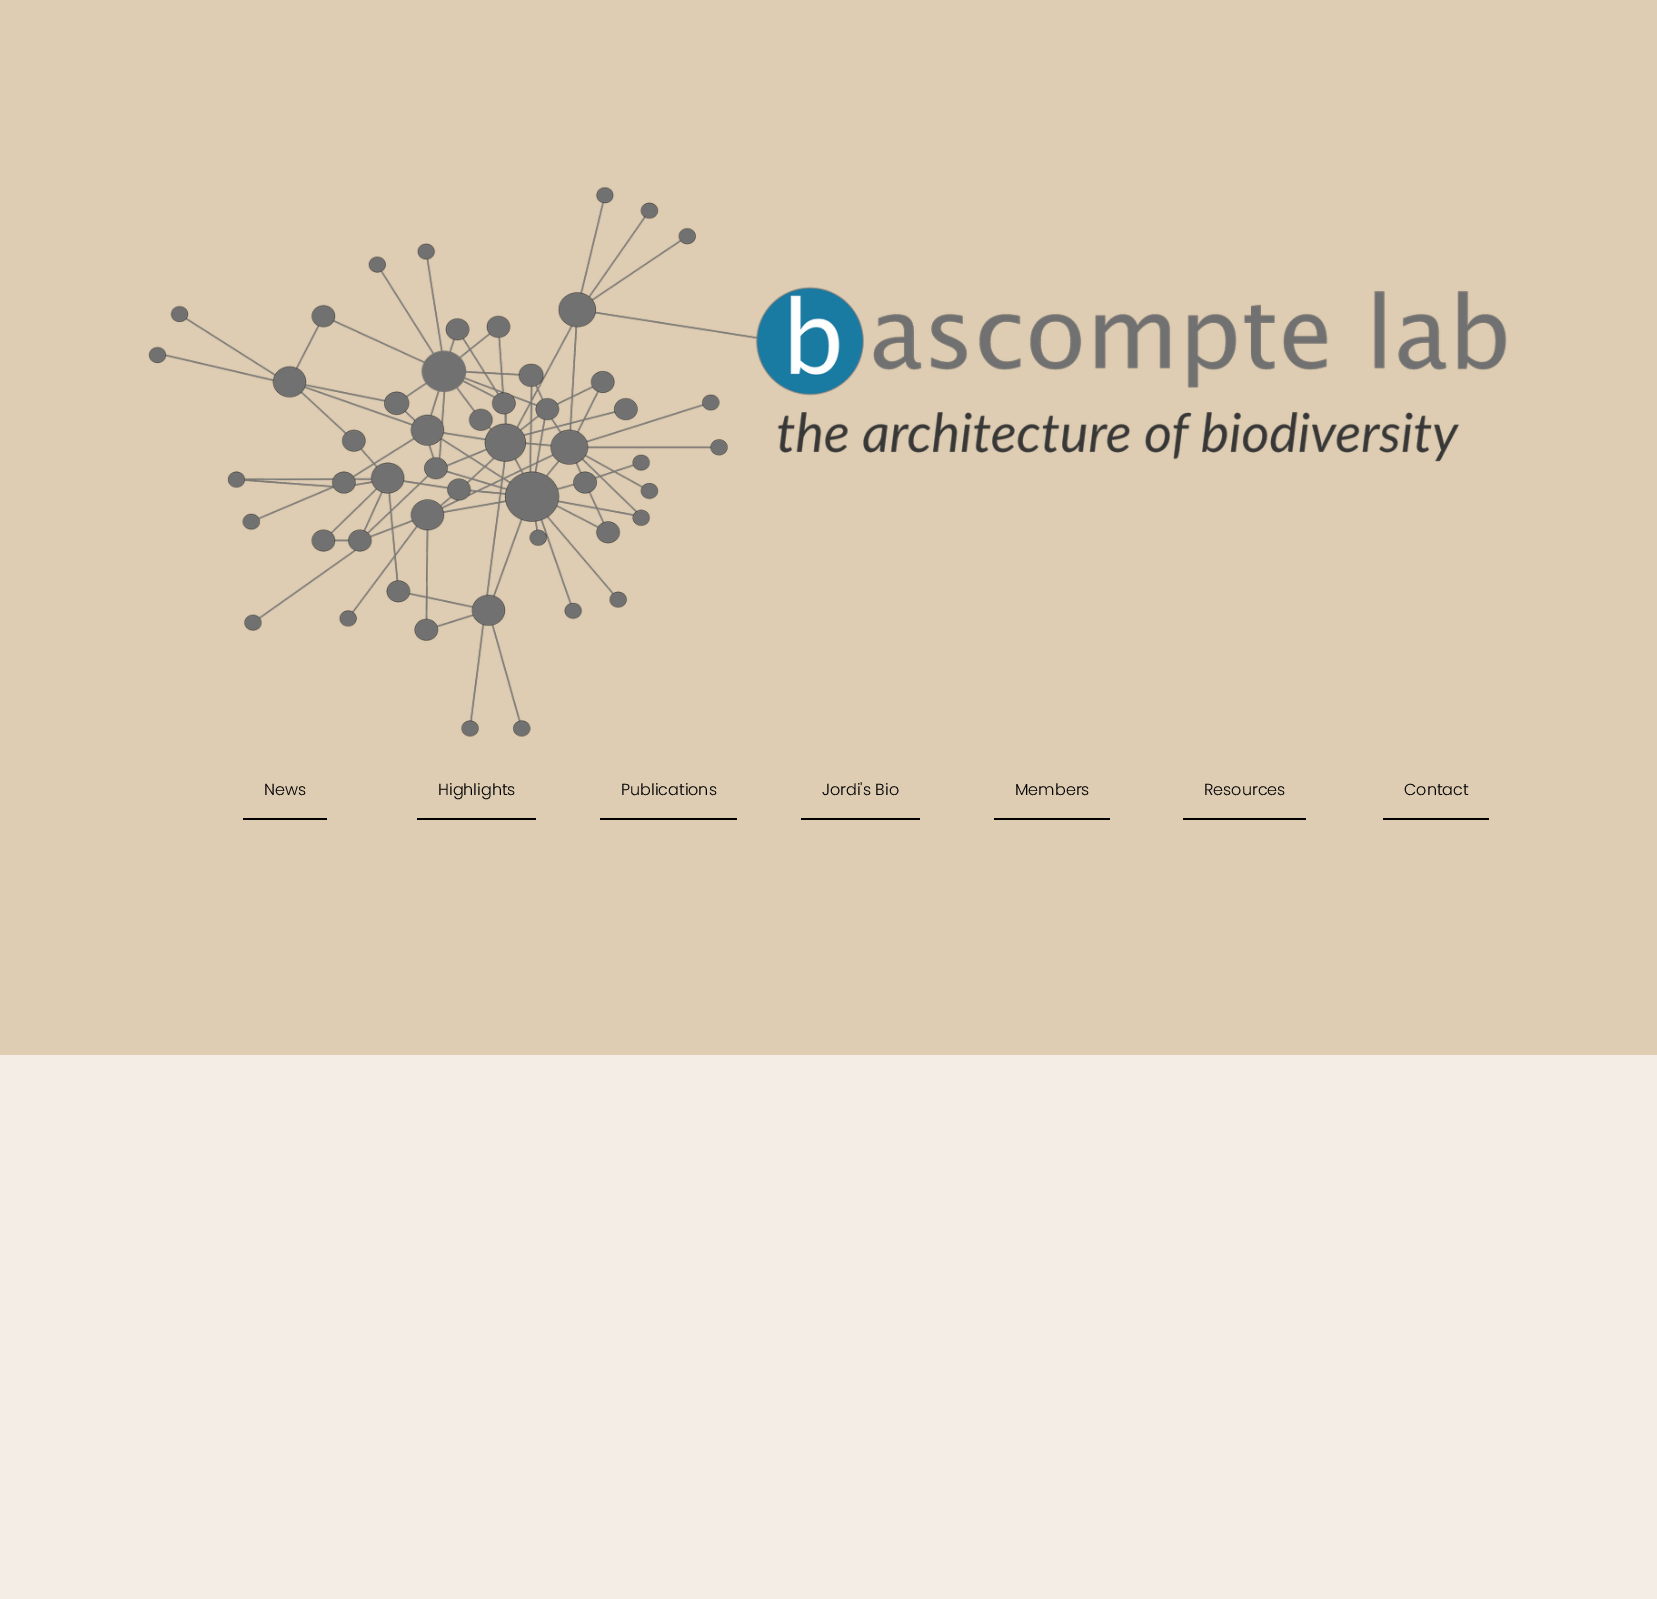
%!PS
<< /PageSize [1657 1599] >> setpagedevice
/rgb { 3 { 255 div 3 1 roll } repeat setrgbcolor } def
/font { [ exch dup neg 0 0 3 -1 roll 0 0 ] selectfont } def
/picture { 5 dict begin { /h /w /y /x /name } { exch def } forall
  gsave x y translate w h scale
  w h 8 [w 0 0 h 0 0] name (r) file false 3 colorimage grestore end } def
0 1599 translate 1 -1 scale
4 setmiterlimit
243 237 229 rgb
0 0 1657 1599 rectfill
222 205 179 rgb
0 0 1657 1055 rectfill
(img/1.rgb) 148 186 1359 551 picture
[
  [243 818 84 2 0 0 0]
  [417 818 119 2 0 0 0]
  [600 818 137 2 0 0 0]
  [801 818 119 2 0 0 0]
  [994 818 116 2 0 0 0]
  [1183 818 123 2 0 0 0]
  [1383 818 106 2 0 0 0]
] { aload pop rgb rectfill } forall
/Poppins-Light 16 font
[
  [(News) 264 795]
  [(Highlights) 438 795]
  [(Publications) 621 795]
  [(Jordi's Bio) 822 795]
  [(Members) 1015 795]
  [(Resources) 1204 795]
  [(Contact) 1404 795]
] { aload pop moveto show } forall
showpage
